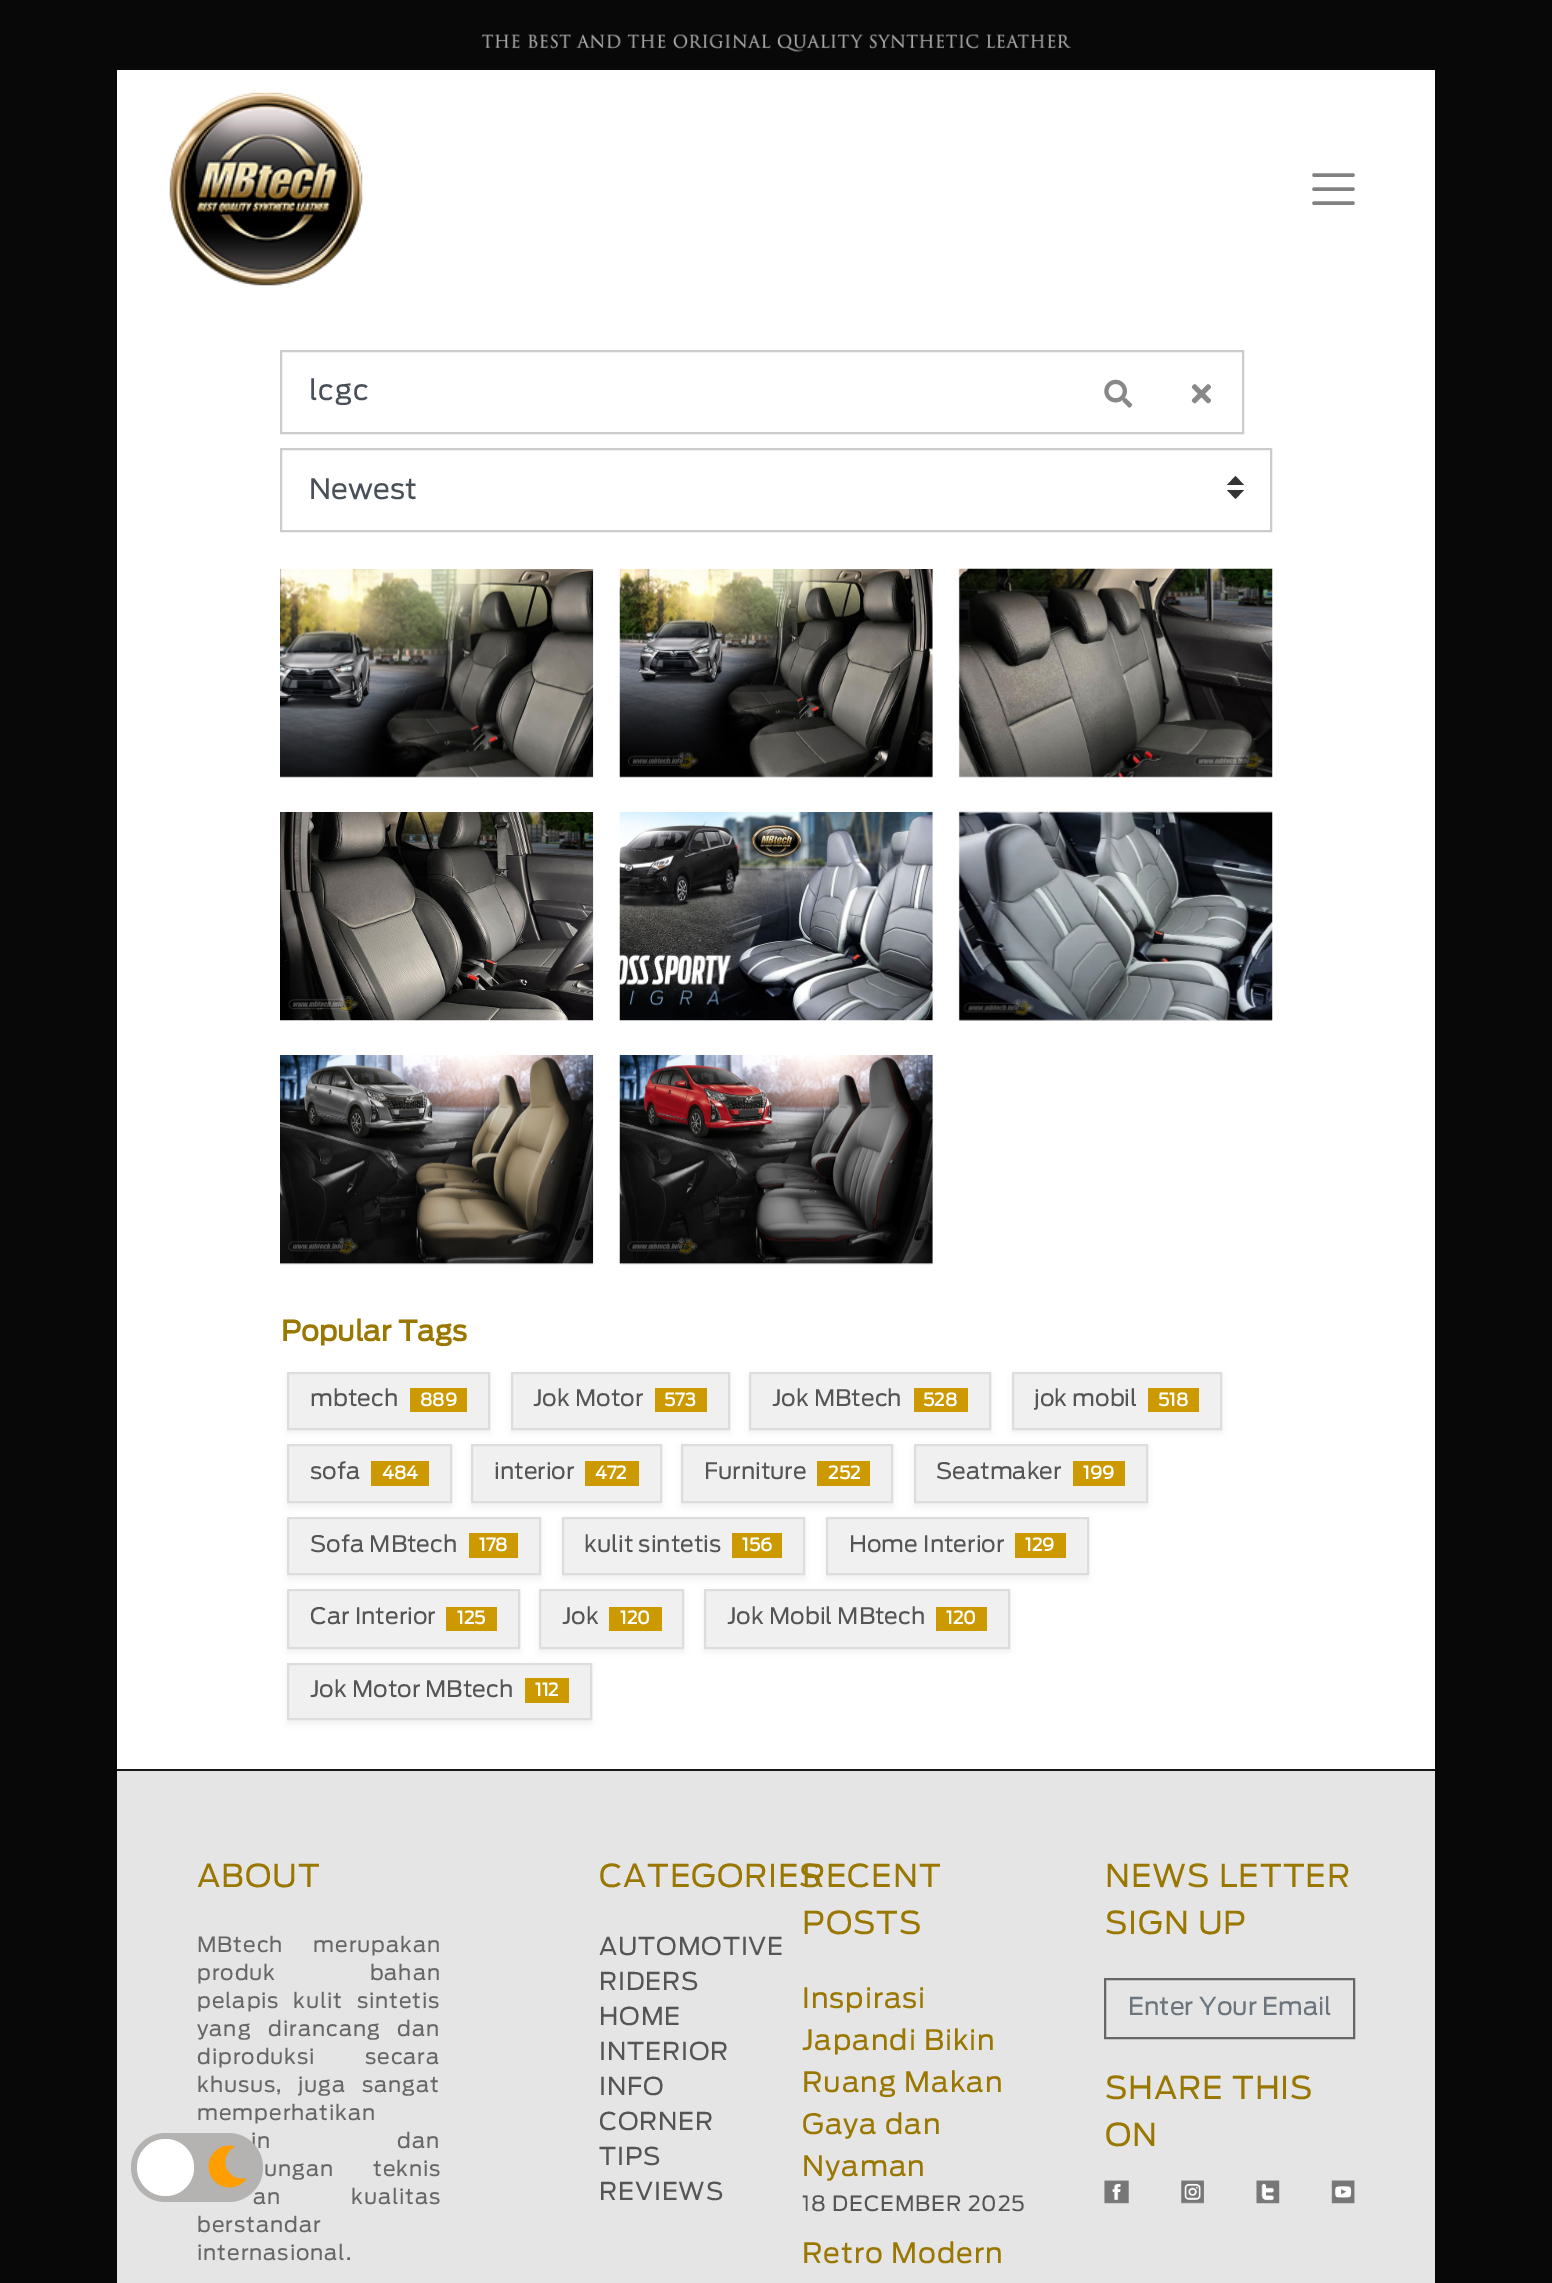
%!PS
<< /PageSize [1552 2283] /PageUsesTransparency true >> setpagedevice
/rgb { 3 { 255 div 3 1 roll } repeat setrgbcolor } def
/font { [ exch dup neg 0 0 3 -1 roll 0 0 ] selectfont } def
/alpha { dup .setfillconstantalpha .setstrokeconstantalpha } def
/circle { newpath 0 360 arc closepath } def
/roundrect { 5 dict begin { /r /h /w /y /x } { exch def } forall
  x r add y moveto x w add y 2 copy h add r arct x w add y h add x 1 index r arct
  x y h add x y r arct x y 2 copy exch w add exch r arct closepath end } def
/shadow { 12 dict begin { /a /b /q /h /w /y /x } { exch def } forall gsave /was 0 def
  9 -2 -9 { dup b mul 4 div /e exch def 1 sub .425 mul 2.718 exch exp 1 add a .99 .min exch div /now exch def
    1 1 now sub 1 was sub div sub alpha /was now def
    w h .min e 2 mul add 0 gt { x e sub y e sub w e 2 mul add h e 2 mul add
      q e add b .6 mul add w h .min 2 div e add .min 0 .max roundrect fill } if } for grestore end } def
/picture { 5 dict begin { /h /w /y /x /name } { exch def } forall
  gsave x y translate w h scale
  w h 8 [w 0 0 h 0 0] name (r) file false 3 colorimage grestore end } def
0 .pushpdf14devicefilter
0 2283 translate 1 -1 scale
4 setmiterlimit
8 8 8 rgb
0 0 1552 2283 rectfill
(img/1.rgb) 481 34 591 18 picture
255 255 255 rgb
117 70 1318 1699 rectfill
(img/2.rgb) 169 92 194 194 picture
128 128 128 rgb
3.5 setlinewidth
1 setlinecap
1314 175 moveto 1353 175 lineto 1314 189 moveto 1353 189 lineto 1314 203 moveto 1353 203 lineto stroke
204 204 204 rgb
2 setlinewidth
0 setlinecap
281 351 962 82 rectstroke
(img/3.rgb) 1104 379 29 29 picture
(img/4.rgb) 1191 384 20 20 picture
51 51 51 rgb
1227 485 moveto 1235.5 476 lineto 1244 485 lineto closepath 1227 490 moveto 1235.5 499 lineto 1244 490 lineto closepath fill
204 204 204 rgb
281 449 990 82 rectstroke
(img/5.rgb) 280 569 314 209 picture
(img/6.rgb) 619 569 314 209 picture
(img/7.rgb) 958 568 315 210 picture
(img/8.rgb) 280 812 314 209 picture
(img/9.rgb) 619 812 314 209 picture
(img/10.rgb) 958 811 315 210 picture
(img/11.rgb) 280 1055 314 210 picture
(img/12.rgb) 619 1055 314 210 picture
0 0 0 rgb
287 1376 203 57 0 3.5 0.05 shadow
240 240 240 rgb
288 1373 moveto 489 1373 lineto 489 1429 lineto 288 1429 lineto closepath gsave fill grestore
221 221 221 rgb
stroke
204 153 0 rgb
410 1388 57 24 rectfill
0 0 0 rgb
511 1376 219 57 0 3.5 0.05 shadow
240 240 240 rgb
512 1373 moveto 729 1373 lineto 729 1429 lineto 512 1429 lineto closepath gsave fill grestore
221 221 221 rgb
stroke
204 153 0 rgb
655 1388 52 24 rectfill
0 0 0 rgb
749 1376 242 57 0 3.5 0.05 shadow
240 240 240 rgb
750 1373 moveto 990 1373 lineto 990 1429 lineto 750 1429 lineto closepath gsave fill grestore
221 221 221 rgb
stroke
204 153 0 rgb
914 1388 54 24 rectfill
0 0 0 rgb
1012 1376 210 57 0 3.5 0.05 shadow
240 240 240 rgb
1013 1373 moveto 1221 1373 lineto 1221 1429 lineto 1013 1429 lineto closepath gsave fill grestore
221 221 221 rgb
stroke
204 153 0 rgb
1148 1388 51 24 rectfill
0 0 0 rgb
287 1447 165 60 0 3.5 0.05 shadow
240 240 240 rgb
288 1445 moveto 451 1445 lineto 451 1502 lineto 288 1502 lineto closepath gsave fill grestore
221 221 221 rgb
stroke
204 153 0 rgb
371 1461 58 25 rectfill
0 0 0 rgb
471 1447 191 60 0 3.5 0.05 shadow
240 240 240 rgb
472 1445 moveto 661 1445 lineto 661 1502 lineto 472 1502 lineto closepath gsave fill grestore
221 221 221 rgb
stroke
204 153 0 rgb
585 1461 54 25 rectfill
0 0 0 rgb
681 1447 212 60 0 3.5 0.05 shadow
240 240 240 rgb
682 1445 moveto 892 1445 lineto 892 1502 lineto 682 1502 lineto closepath gsave fill grestore
221 221 221 rgb
stroke
204 153 0 rgb
817 1461 53 25 rectfill
0 0 0 rgb
914 1447 234 60 0 3.5 0.05 shadow
240 240 240 rgb
915 1445 moveto 1147 1445 lineto 1147 1502 lineto 915 1502 lineto closepath gsave fill grestore
221 221 221 rgb
stroke
204 153 0 rgb
1073 1461 52 25 rectfill
0 0 0 rgb
287 1521 254 58 0 3.5 0.05 shadow
240 240 240 rgb
288 1518 moveto 540 1518 lineto 540 1574 lineto 288 1574 lineto closepath gsave fill grestore
221 221 221 rgb
stroke
204 153 0 rgb
469 1533 49 25 rectfill
0 0 0 rgb
562 1521 243 58 0 3.5 0.05 shadow
240 240 240 rgb
563 1518 moveto 804 1518 lineto 804 1574 lineto 563 1574 lineto closepath gsave fill grestore
221 221 221 rgb
stroke
204 153 0 rgb
732 1533 50 25 rectfill
0 0 0 rgb
826 1521 263 58 0 3.5 0.05 shadow
240 240 240 rgb
827 1518 moveto 1088 1518 lineto 1088 1574 lineto 827 1574 lineto closepath gsave fill grestore
221 221 221 rgb
stroke
204 153 0 rgb
1015 1533 51 25 rectfill
0 0 0 rgb
287 1593 233 59 0 3.5 0.05 shadow
240 240 240 rgb
288 1590 moveto 519 1590 lineto 519 1648 lineto 288 1648 lineto closepath gsave fill grestore
221 221 221 rgb
stroke
204 153 0 rgb
446 1607 51 24 rectfill
0 0 0 rgb
539 1593 145 59 0 3.5 0.05 shadow
240 240 240 rgb
540 1590 moveto 683 1590 lineto 683 1648 lineto 540 1648 lineto closepath gsave fill grestore
221 221 221 rgb
stroke
204 153 0 rgb
609 1607 53 24 rectfill
0 0 0 rgb
704 1593 306 59 0 3.5 0.05 shadow
240 240 240 rgb
705 1590 moveto 1009 1590 lineto 1009 1648 lineto 705 1648 lineto closepath gsave fill grestore
221 221 221 rgb
stroke
204 153 0 rgb
936 1607 51 24 rectfill
0 0 0 rgb
287 1666 305 58 0 3.5 0.05 shadow
240 240 240 rgb
288 1664 moveto 591 1664 lineto 591 1719 lineto 288 1719 lineto closepath gsave fill grestore
221 221 221 rgb
stroke
[
  [525 1678 44 25 204 153 0]
  [117 1771 1318 512 229 229 229]
  [117 1769 1318 2 24 24 24]
] { aload pop rgb rectfill } forall
102 102 102 rgb
1105 1979 249 59 rectstroke
(img/13.rgb) 1104 2180 25 24 picture
(img/14.rgb) 1181 2180 23 24 picture
(img/15.rgb) 1256 2180 24 24 picture
(img/16.rgb) 1331 2180 24 24 picture
/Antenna-Regular 28 font
73 80 87 rgb
309 400 moveto 0.9 0 (lcgc) ashow
309 499 moveto (Newest) show
/Antenna-Bold 28 font
153 119 0 rgb
281 1341 moveto (Popular Tags) show
/Antenna-Regular 22.75 font
85 85 85 rgb
310 1406 moveto (mbtech) show
/Antenna-Bold 17.5 font
255 255 255 rgb
420 1406 moveto (889) show
/Antenna-Regular 22.75 font
85 85 85 rgb
533 1406 moveto (Jok Motor) show
/Antenna-Bold 17.5 font
255 255 255 rgb
664 1406 moveto (573) show
/Antenna-Regular 22.75 font
85 85 85 rgb
772 1406 moveto (Jok MBtech) show
/Antenna-Bold 17.5 font
255 255 255 rgb
923 1406 moveto (528) show
/Antenna-Regular 22.75 font
85 85 85 rgb
1034 1406 moveto (jok mobil) show
/Antenna-Bold 17.5 font
255 255 255 rgb
1158 1406 moveto (518) show
/Antenna-Regular 22.75 font
85 85 85 rgb
310 1479 moveto (sofa) show
/Antenna-Bold 17.5 font
255 255 255 rgb
382 1479 moveto (484) show
/Antenna-Regular 22.75 font
85 85 85 rgb
494 1479 moveto (interior) show
/Antenna-Bold 17.5 font
255 255 255 rgb
595 1479 moveto (472) show
/Antenna-Regular 22.75 font
85 85 85 rgb
704 1479 moveto (Furniture) show
/Antenna-Bold 17.5 font
255 255 255 rgb
828 1479 moveto (252) show
/Antenna-Regular 22.75 font
85 85 85 rgb
936 1479 moveto (Seatmaker) show
/Antenna-Bold 17.5 font
255 255 255 rgb
1083 1479 moveto (199) show
/Antenna-Regular 22.75 font
85 85 85 rgb
310 1552 moveto (Sofa MBtech) show
/Antenna-Bold 17.5 font
255 255 255 rgb
479 1551 moveto (178) show
/Antenna-Regular 22.75 font
85 85 85 rgb
584 1552 moveto (kulit sintetis) show
/Antenna-Bold 17.5 font
255 255 255 rgb
742 1551 moveto (156) show
/Antenna-Regular 22.75 font
85 85 85 rgb
849 1552 moveto (Home Interior) show
/Antenna-Bold 17.5 font
255 255 255 rgb
1025 1551 moveto (129) show
/Antenna-Regular 22.75 font
85 85 85 rgb
310 1624 moveto (Car Interior) show
/Antenna-Bold 17.5 font
255 255 255 rgb
457 1624 moveto (125) show
/Antenna-Regular 22.75 font
85 85 85 rgb
562 1624 moveto (Jok) show
/Antenna-Bold 17.5 font
255 255 255 rgb
620 1624 moveto (120) show
/Antenna-Regular 22.75 font
85 85 85 rgb
727 1624 moveto (Jok Mobil MBtech) show
/Antenna-Bold 17.5 font
255 255 255 rgb
946 1624 moveto (120) show
/Antenna-Regular 22.75 font
85 85 85 rgb
310 1697 moveto (Jok Motor MBtech) show
/Antenna-Bold 17.5 font
255 255 255 rgb
535 1696 moveto (112) show
/Antenna-Regular 31.5 font
153 119 0 rgb
197 1887 moveto 0.9 0 (ABOUT) ashow
/Antenna-Regular 21 font
103 103 103 rgb
197 1952 moveto 24 0 32 0.9 0 (MBtech merupakan) awidthshow
197 1980 moveto 88 0 32 0.9 0 (produk bahan) awidthshow
197 2008 moveto 8 0 32 0.9 0 (pelapis kulit sintetis) awidthshow
197 2036 moveto 11 0 32 0.9 0 (yang dirancang dan) awidthshow
197 2064 moveto 44 0 32 0.9 0 (diproduksi secara) awidthshow
197 2092 moveto 10 0 32 0.9 0 (khusus, juga sangat) awidthshow
197 2120 moveto 0.9 0 (memperhatikan) ashow
251 2148 moveto 120 0 32 0.9 0 (in dan) awidthshow
264 2176 moveto 33 0 32 0.9 0 (ungan teknis) awidthshow
253 2204 moveto 64 0 32 0.9 0 (an kualitas) awidthshow
197 2232 moveto 0.9 0 (berstandar) ashow
197 2260 moveto 0.9 0 (internasional.) ashow
/Antenna-Regular 31.5 font
153 119 0 rgb
599 1887 moveto 0.9 0 (CATEGORIES) ashow
/Antenna-Regular 24.5 font
85 85 85 rgb
599 1955 moveto 0.9 0 (AUTOMOTIVE) ashow
599 1990 moveto 0.9 0 (RIDERS) ashow
599 2025 moveto 0.9 0 (HOME) ashow
599 2060 moveto 0.9 0 (INTERIOR) ashow
599 2095 moveto 0.9 0 (INFO) ashow
599 2130 moveto 0.9 0 (CORNER) ashow
599 2165 moveto 0.9 0 (TIPS) ashow
599 2200 moveto 0.9 0 (REVIEWS) ashow
/Antenna-Regular 31.5 font
153 119 0 rgb
802 1887 moveto 0.9 0 (RECENT) ashow
802 1934 moveto 0.9 0 (POSTS) ashow
/Antenna-Regular 28 font
802 2008 moveto 0.9 0 (Inspirasi) ashow
802 2050 moveto 0.9 0 (Japandi Bikin) ashow
802 2092 moveto 0.9 0 (Ruang Makan) ashow
802 2134 moveto 0.9 0 (Gaya dan) ashow
802 2176 moveto 0.9 0 (Nyaman) ashow
/Antenna-Regular 21 font
85 85 85 rgb
802 2211 moveto 0.9 0 (18 DECEMBER 2025) ashow
/Antenna-Regular 28 font
153 119 0 rgb
802 2263 moveto 0.9 0 (Retro Modern) ashow
/Antenna-Regular 31.5 font
1105 1887 moveto 0.9 0 (NEWS LETTER) ashow
1105 1934 moveto 0.9 0 (SIGN UP) ashow
/Antenna-Regular 24.5 font
108 117 125 rgb
1128 2015 moveto (Enter Your Email) show
/Antenna-Regular 31.5 font
153 119 0 rgb
1105 2099 moveto 0.9 0 (SHARE THIS) ashow
1105 2146 moveto 0.9 0 (ON) ashow
181 178 178 rgb
131 2133 132 69 34.5 roundrect fill
255 255 255 rgb
165.5 2167.5 28.5 circle fill
(img/17.rgb) 208 2145 38 43 picture
.poppdf14devicefilter showpage
